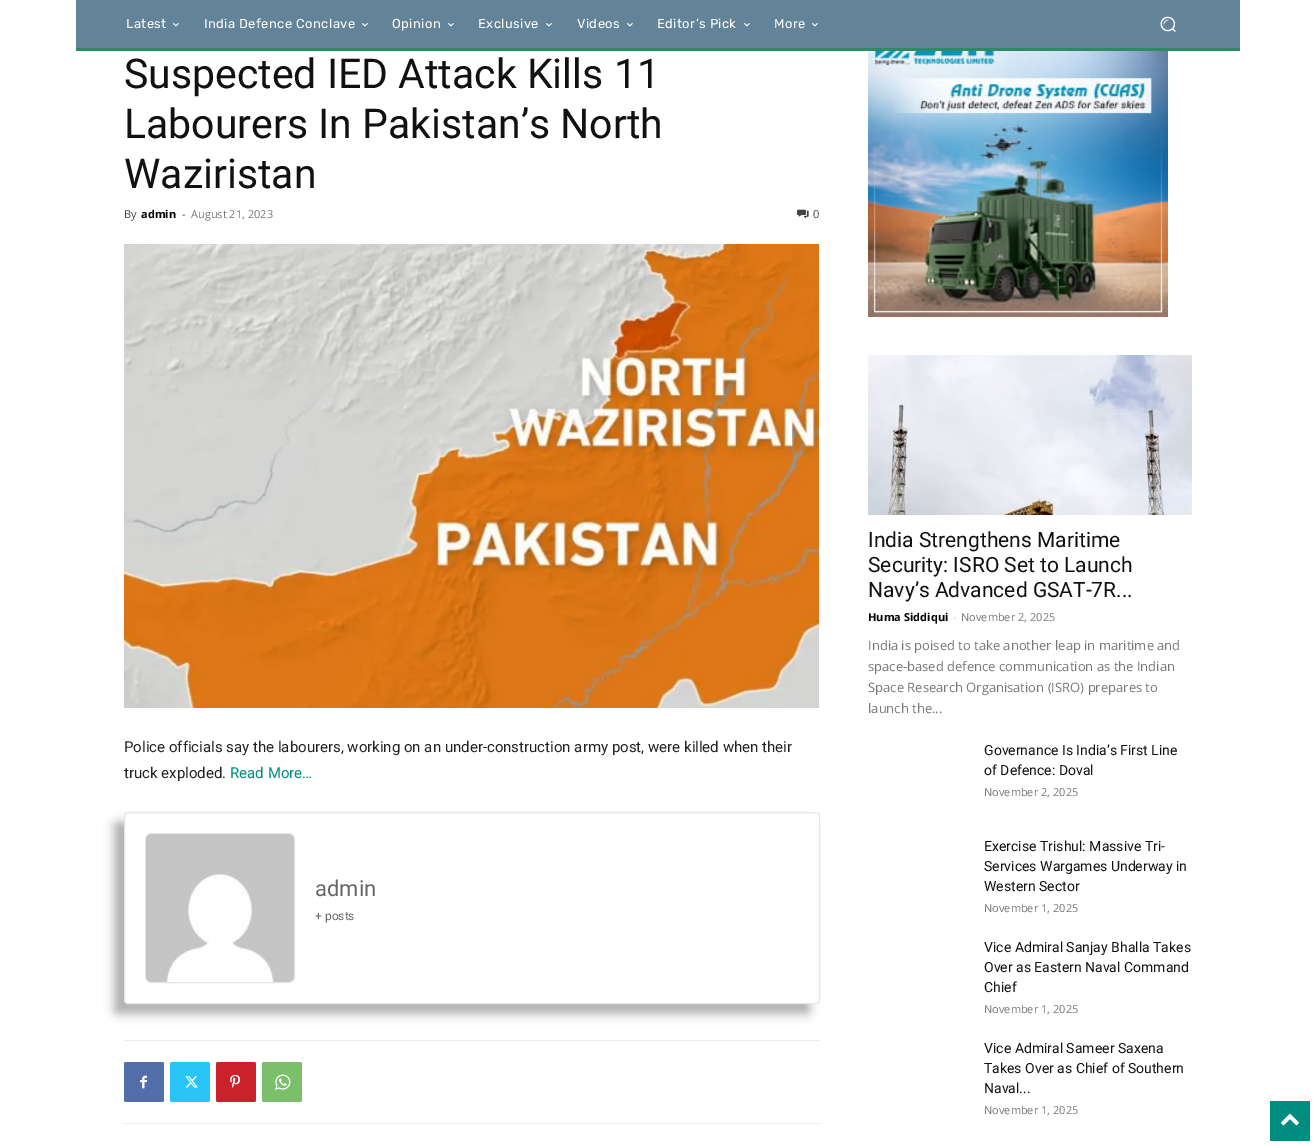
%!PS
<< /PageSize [1315 1145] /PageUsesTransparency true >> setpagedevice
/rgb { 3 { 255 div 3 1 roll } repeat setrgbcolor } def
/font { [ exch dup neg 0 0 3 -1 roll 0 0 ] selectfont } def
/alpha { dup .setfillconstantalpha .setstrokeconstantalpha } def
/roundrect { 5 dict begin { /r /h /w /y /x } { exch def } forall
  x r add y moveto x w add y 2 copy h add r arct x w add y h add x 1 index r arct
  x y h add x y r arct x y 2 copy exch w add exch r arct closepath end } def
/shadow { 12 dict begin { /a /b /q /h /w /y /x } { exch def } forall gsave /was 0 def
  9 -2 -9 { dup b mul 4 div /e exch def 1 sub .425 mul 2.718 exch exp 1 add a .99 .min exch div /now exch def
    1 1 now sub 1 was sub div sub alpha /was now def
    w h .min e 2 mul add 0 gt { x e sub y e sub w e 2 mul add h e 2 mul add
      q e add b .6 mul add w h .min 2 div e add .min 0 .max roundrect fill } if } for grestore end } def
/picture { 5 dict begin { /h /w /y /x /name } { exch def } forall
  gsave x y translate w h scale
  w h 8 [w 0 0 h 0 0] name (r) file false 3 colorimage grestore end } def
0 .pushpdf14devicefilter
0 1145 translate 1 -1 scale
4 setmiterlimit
255 255 255 rgb
0 0 1315 1145 rectfill
98 131 152 rgb
76 0 1164 48 rectfill
(img/1.rgb) 173 23 6 4 picture
(img/1.rgb) 362 23 6 4 picture
(img/1.rgb) 448 23 6 4 picture
(img/1.rgb) 546 23 6 4 picture
(img/1.rgb) 627 23 6 4 picture
(img/1.rgb) 744 23 6 4 picture
(img/1.rgb) 812 23 6 4 picture
(img/2.rgb) 1160 16 16 16 picture
49 136 101 rgb
76 48 1164 3 rectfill
(img/3.rgb) 797 209 12 10 picture
(img/4.rgb) 124 244 695 464 picture
175 175 175 rgb
114 822 696 192 4 5 1 shadow
255 255 255 rgb
124.5 812.5 695 191 3.5 roundrect gsave fill grestore
230 230 230 rgb
stroke
145.5 833.5 149 149 5.5 roundrect stroke
(img/5.rgb) 146 834 148 148 picture
237 237 237 rgb
124 1040 696 1 rectfill
124 1123 696 1 rectfill
81 110 171 rgb
124 1062 40 40 2 roundrect fill
(img/6.rgb) 140 1075 7 14 picture
41 197 246 rgb
170 1062 40 40 2 roundrect fill
(img/7.rgb) 185 1076 13 12 picture
202 33 42 rgb
216 1062 40 40 2 roundrect fill
(img/8.rgb) 230 1074 11 14 picture
123 191 106 rgb
262 1062 40 40 2 roundrect fill
(img/9.rgb) 275 1074 16 16 picture
(img/10.rgb) 868 51 300 266 picture
(img/11.rgb) 868 355 324 160 picture
0 141 127 rgb
1270 1101 40 40 rectfill
(img/12.rgb) 1281 1113 18 13 picture
/Rubik-Regular 13 font
255 255 255 rgb
126 28 moveto 0.4 0 (Latest) ashow
204 28 moveto 0.4 0 (India Defence Conclave) ashow
392 28 moveto 0.4 0 (Opinion) ashow
478 28 moveto 0.4 0 (Exclusive) ashow
577 28 moveto 0.4 0 (Videos) ashow
657 28 moveto 0.4 0 (Editor’s Pick) ashow
774 28 moveto 0.4 0 (More) ashow
/Roboto-Regular 41 font
17 17 17 rgb
[
  [(Suspected IED Attack Kills 11) 124 88]
  [(Labourers In Pakistan’s North) 124 138]
  [(Waziristan) 124 188]
] { aload pop moveto show } forall
/OpenSans-Regular 11 font
68 68 68 rgb
124 218 moveto (By) show
/OpenSans-Bold 11 font
0 0 0 rgb
141 218 moveto (admin) show
/OpenSans-Regular 11 font
68 68 68 rgb
182 218 moveto (-) show
118 118 118 rgb
191 218 moveto (August 21, 2023) show
68 68 68 rgb
813 218 moveto (0) show
/Roboto-Regular 15 font
34 34 34 rgb
124 752 moveto (Police officials say the labourers, working on an under-construction army post, were killed when their) show
124 778 moveto (truck exploded.) show
0 141 127 rgb
230 778 moveto (Read More…) show
/Roboto-Regular 22 font
103 103 103 rgb
315 896 moveto (admin) show
/Roboto-Regular 12 font
315 920 moveto (+ posts) show
/Roboto-Regular 21 font
17 17 17 rgb
[
  [(India Strengthens Maritime) 868 547]
  [(Security: ISRO Set to Launch) 868 572]
  [(Navy’s Advanced GSAT-7R...) 868 597]
] { aload pop moveto show } forall
/OpenSans-Bold 11 font
0 0 0 rgb
868 621 moveto (Huma Siddiqui) show
/OpenSans-Regular 11 font
204 204 204 rgb
953 621 moveto (-) show
118 118 118 rgb
961 621 moveto (November 2, 2025) show
/OpenSans-Regular 13 font
[
  [(India is poised to take another leap in maritime and) 868 650]
  [(space-based defence communication as the Indian) 868 671]
  [(Space Research Organisation \(ISRO\) prepares to) 868 692]
  [(launch the...) 868 713]
] { aload pop moveto show } forall
/Roboto-Regular 14 font
17 17 17 rgb
984 755 moveto (Governance Is India’s First Line) show
984 775 moveto (of Defence: Doval) show
/OpenSans-Regular 11 font
118 118 118 rgb
984 796 moveto (November 2, 2025) show
/Roboto-Regular 14 font
17 17 17 rgb
[
  [(Exercise Trishul: Massive Tri-) 984 851]
  [(Services Wargames Underway in) 984 871]
  [(Western Sector) 984 891]
] { aload pop moveto show } forall
/OpenSans-Regular 11 font
118 118 118 rgb
984 912 moveto (November 1, 2025) show
/Roboto-Regular 14 font
17 17 17 rgb
[
  [(Vice Admiral Sanjay Bhalla Takes) 984 952]
  [(Over as Eastern Naval Command) 984 972]
  [(Chief) 984 992]
] { aload pop moveto show } forall
/OpenSans-Regular 11 font
118 118 118 rgb
984 1013 moveto (November 1, 2025) show
/Roboto-Regular 14 font
17 17 17 rgb
[
  [(Vice Admiral Sameer Saxena) 984 1053]
  [(Takes Over as Chief of Southern) 984 1073]
  [(Naval...) 984 1093]
] { aload pop moveto show } forall
/OpenSans-Regular 11 font
118 118 118 rgb
984 1114 moveto (November 1, 2025) show
.poppdf14devicefilter showpage
